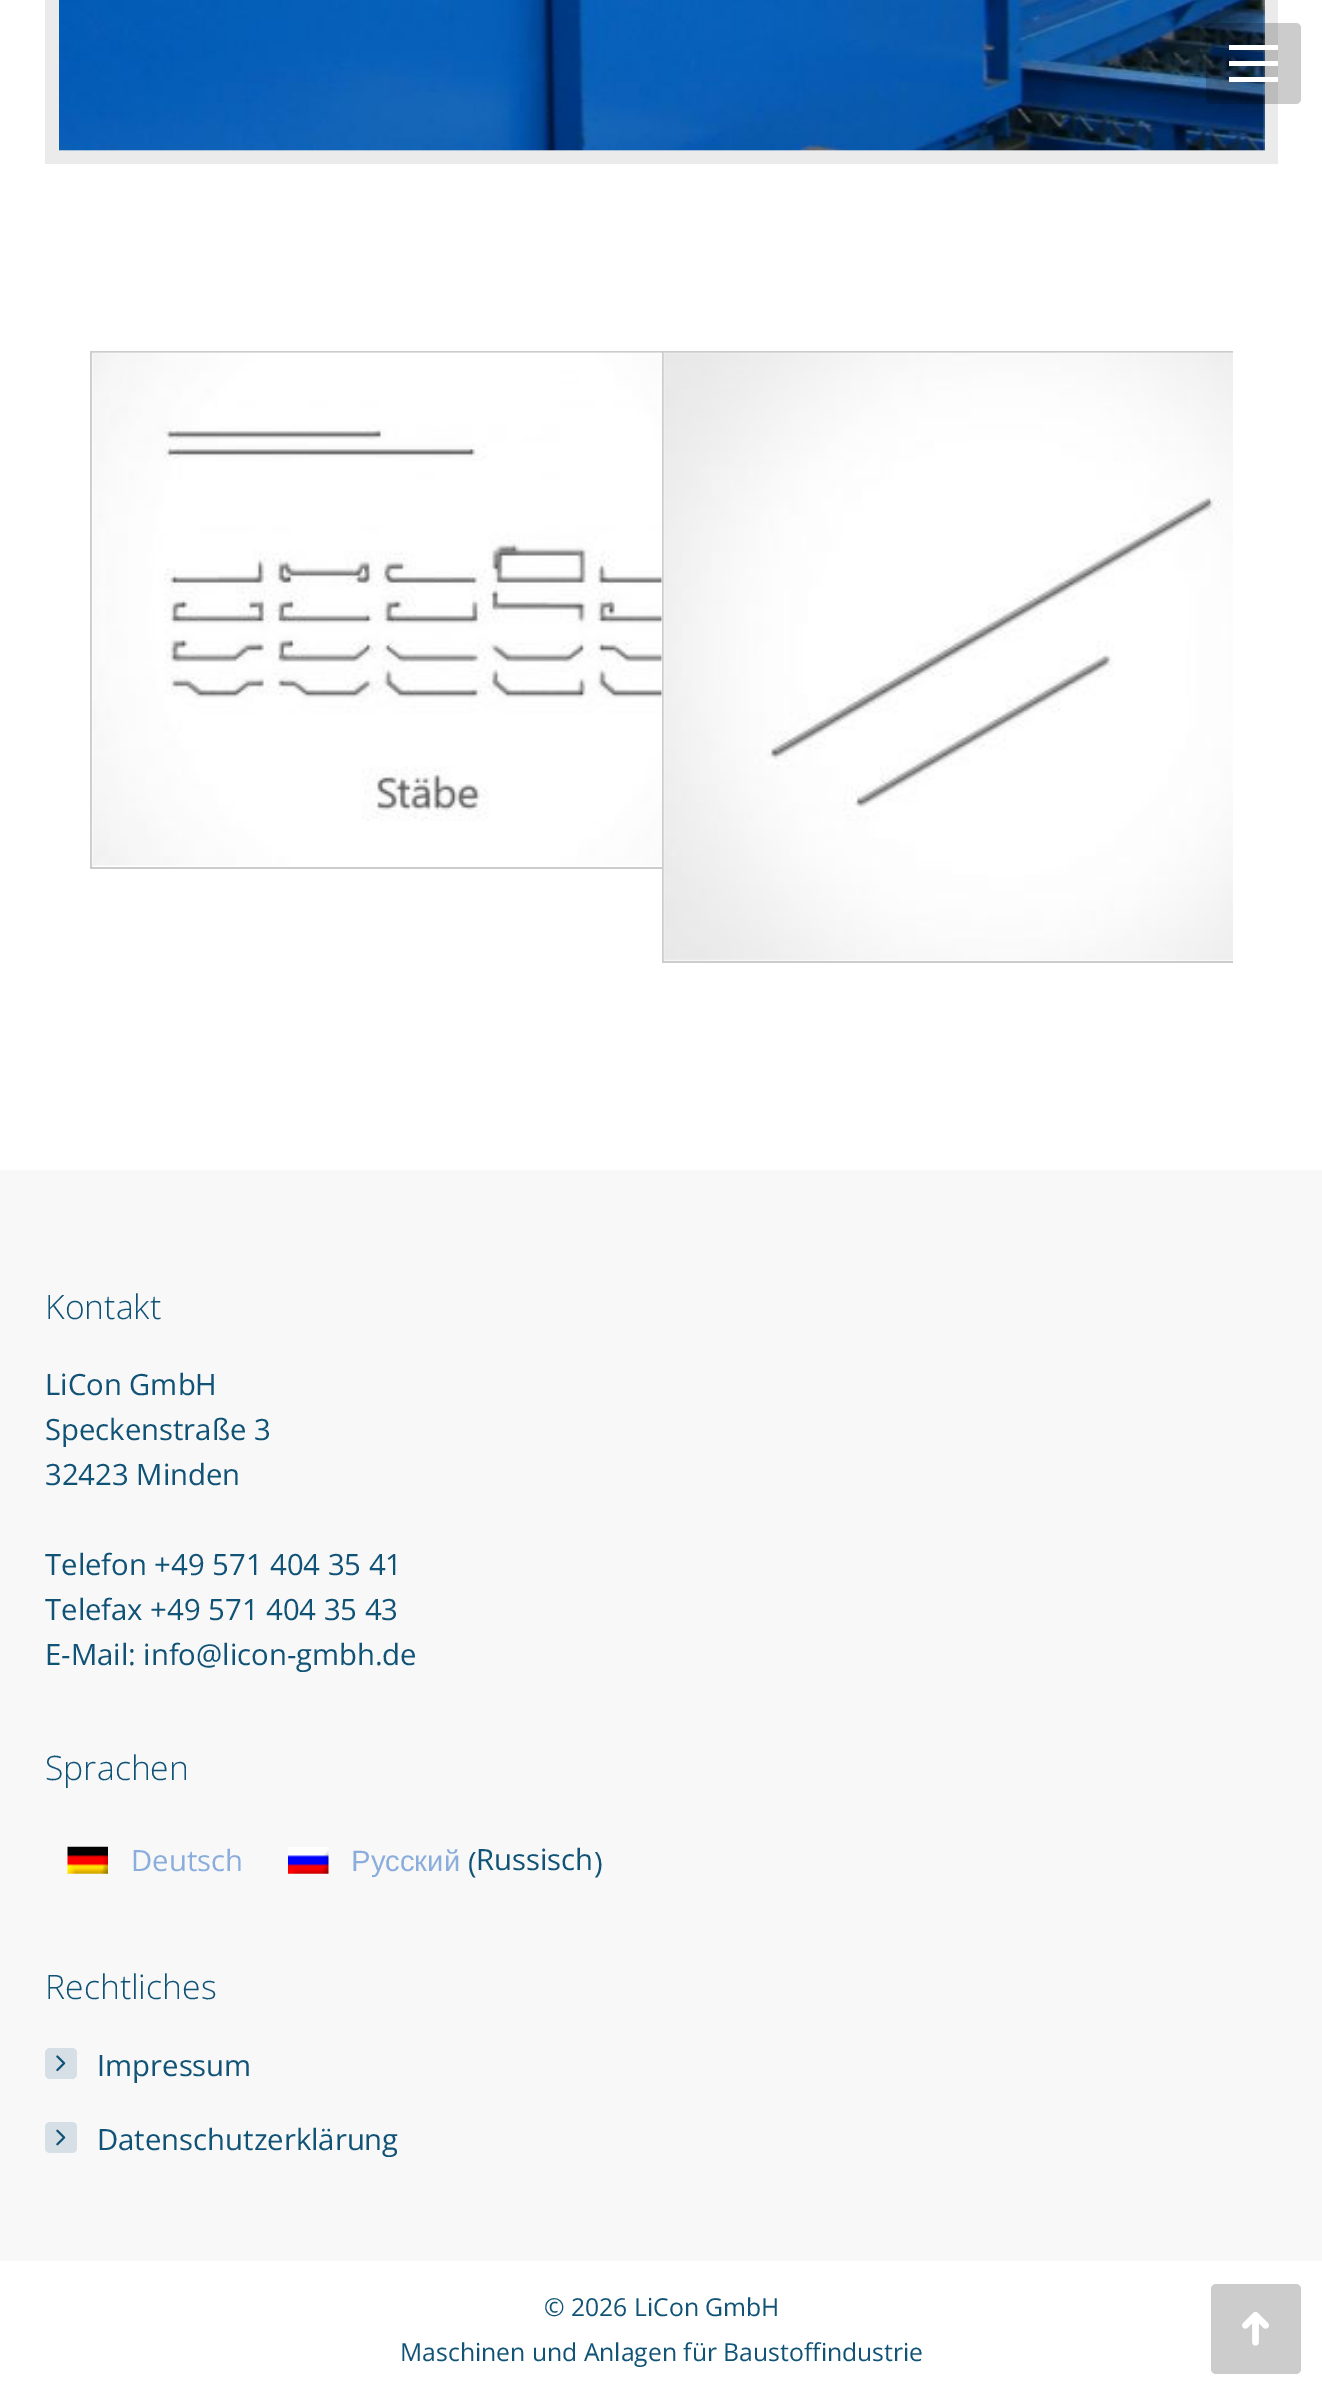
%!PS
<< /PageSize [1322 2396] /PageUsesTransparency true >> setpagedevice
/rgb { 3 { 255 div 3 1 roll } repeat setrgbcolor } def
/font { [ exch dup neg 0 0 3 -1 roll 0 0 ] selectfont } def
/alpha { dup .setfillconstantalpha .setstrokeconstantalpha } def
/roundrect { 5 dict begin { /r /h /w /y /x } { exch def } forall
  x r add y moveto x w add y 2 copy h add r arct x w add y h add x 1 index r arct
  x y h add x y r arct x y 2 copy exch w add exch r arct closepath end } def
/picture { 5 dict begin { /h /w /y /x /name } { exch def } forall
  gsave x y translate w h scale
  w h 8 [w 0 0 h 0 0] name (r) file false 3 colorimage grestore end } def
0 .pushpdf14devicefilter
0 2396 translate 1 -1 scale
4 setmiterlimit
255 255 255 rgb
0 0 1322 2396 rectfill
235 235 235 rgb
45 0 1233 164 rectfill
(img/1.rgb) 59 0 1206 151 picture
gsave
90 351 572 518 rectclip
204 204 204 rgb
2 setlinewidth
91 352 678 516 rectstroke
grestore
(img/2.rgb) 91 352 571 514 picture
gsave
662 351 571 612 rectclip
204 204 204 rgb
2 setlinewidth
663 352 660 610 rectstroke
grestore
(img/3.rgb) 663 352 570 609 picture
0.2 alpha
0 0 0 rgb
1206 23 95 81 5 roundrect fill
1 alpha
[
  [1229 45 49 5 255 255 255]
  [1229 61 49 5 255 255 255]
  [1229 77 49 5 255 255 255]
  [0 1170 1322 1091 248 248 249]
] { aload pop rgb rectfill } forall
(img/4.rgb) 67 1846 41 28 picture
(img/5.rgb) 288 1847 41 27 picture
213 223 229 rgb
45 2048 32 31 5 roundrect fill
(img/6.rgb) 56 2055 10 17 picture
45 2122 32 31 5 roundrect fill
(img/7.rgb) 56 2129 10 17 picture
204 204 204 rgb
1211 2284 90 90 5 roundrect fill
(img/8.rgb) 1242 2311 27 35 picture
/OpenSans-Light 33.75 font
17 83 118 rgb
45 1319 moveto (Kontakt) show
/OpenSans-Regular 29.25 font
[
  [(LiCon GmbH) 45 1395]
  [(Speckenstraße 3) 45 1440]
  [(32423 Minden) 45 1485]
  [(Telefon +49 571 404 35 41) 45 1575]
  [(Telefax +49 571 404 35 43) 45 1620]
  [(E-Mail: info@licon-gmbh.de) 45 1665]
] { aload pop moveto show } forall
/OpenSans-Light 33.75 font
45 1780 moveto (Sprachen) show
/OpenSans-Regular 29.25 font
138 173 220 rgb
131 1871 moveto (Deutsch) show
/LiberationSans-Regular 29.25 font
351 1871 moveto (Русский) show
/OpenSans-Regular 29.25 font
17 83 118 rgb
[
  [(\() 468 1873]
  [(Russisch) 476 1870]
  [(\)) 594 1873]
] { aload pop moveto show } forall
/OpenSans-Light 33.75 font
45 1999 moveto (Rechtliches) show
/OpenSans-Regular 29.25 font
97 2076 moveto (Impressum) show
97 2150 moveto (Datenschutzerklärung) show
/OpenSans-Regular 24.75 font
544 2316 moveto (© 2026 LiCon GmbH) show
400 2361 moveto (Maschinen und Anlagen für Baustoffindustrie) show
.poppdf14devicefilter showpage
